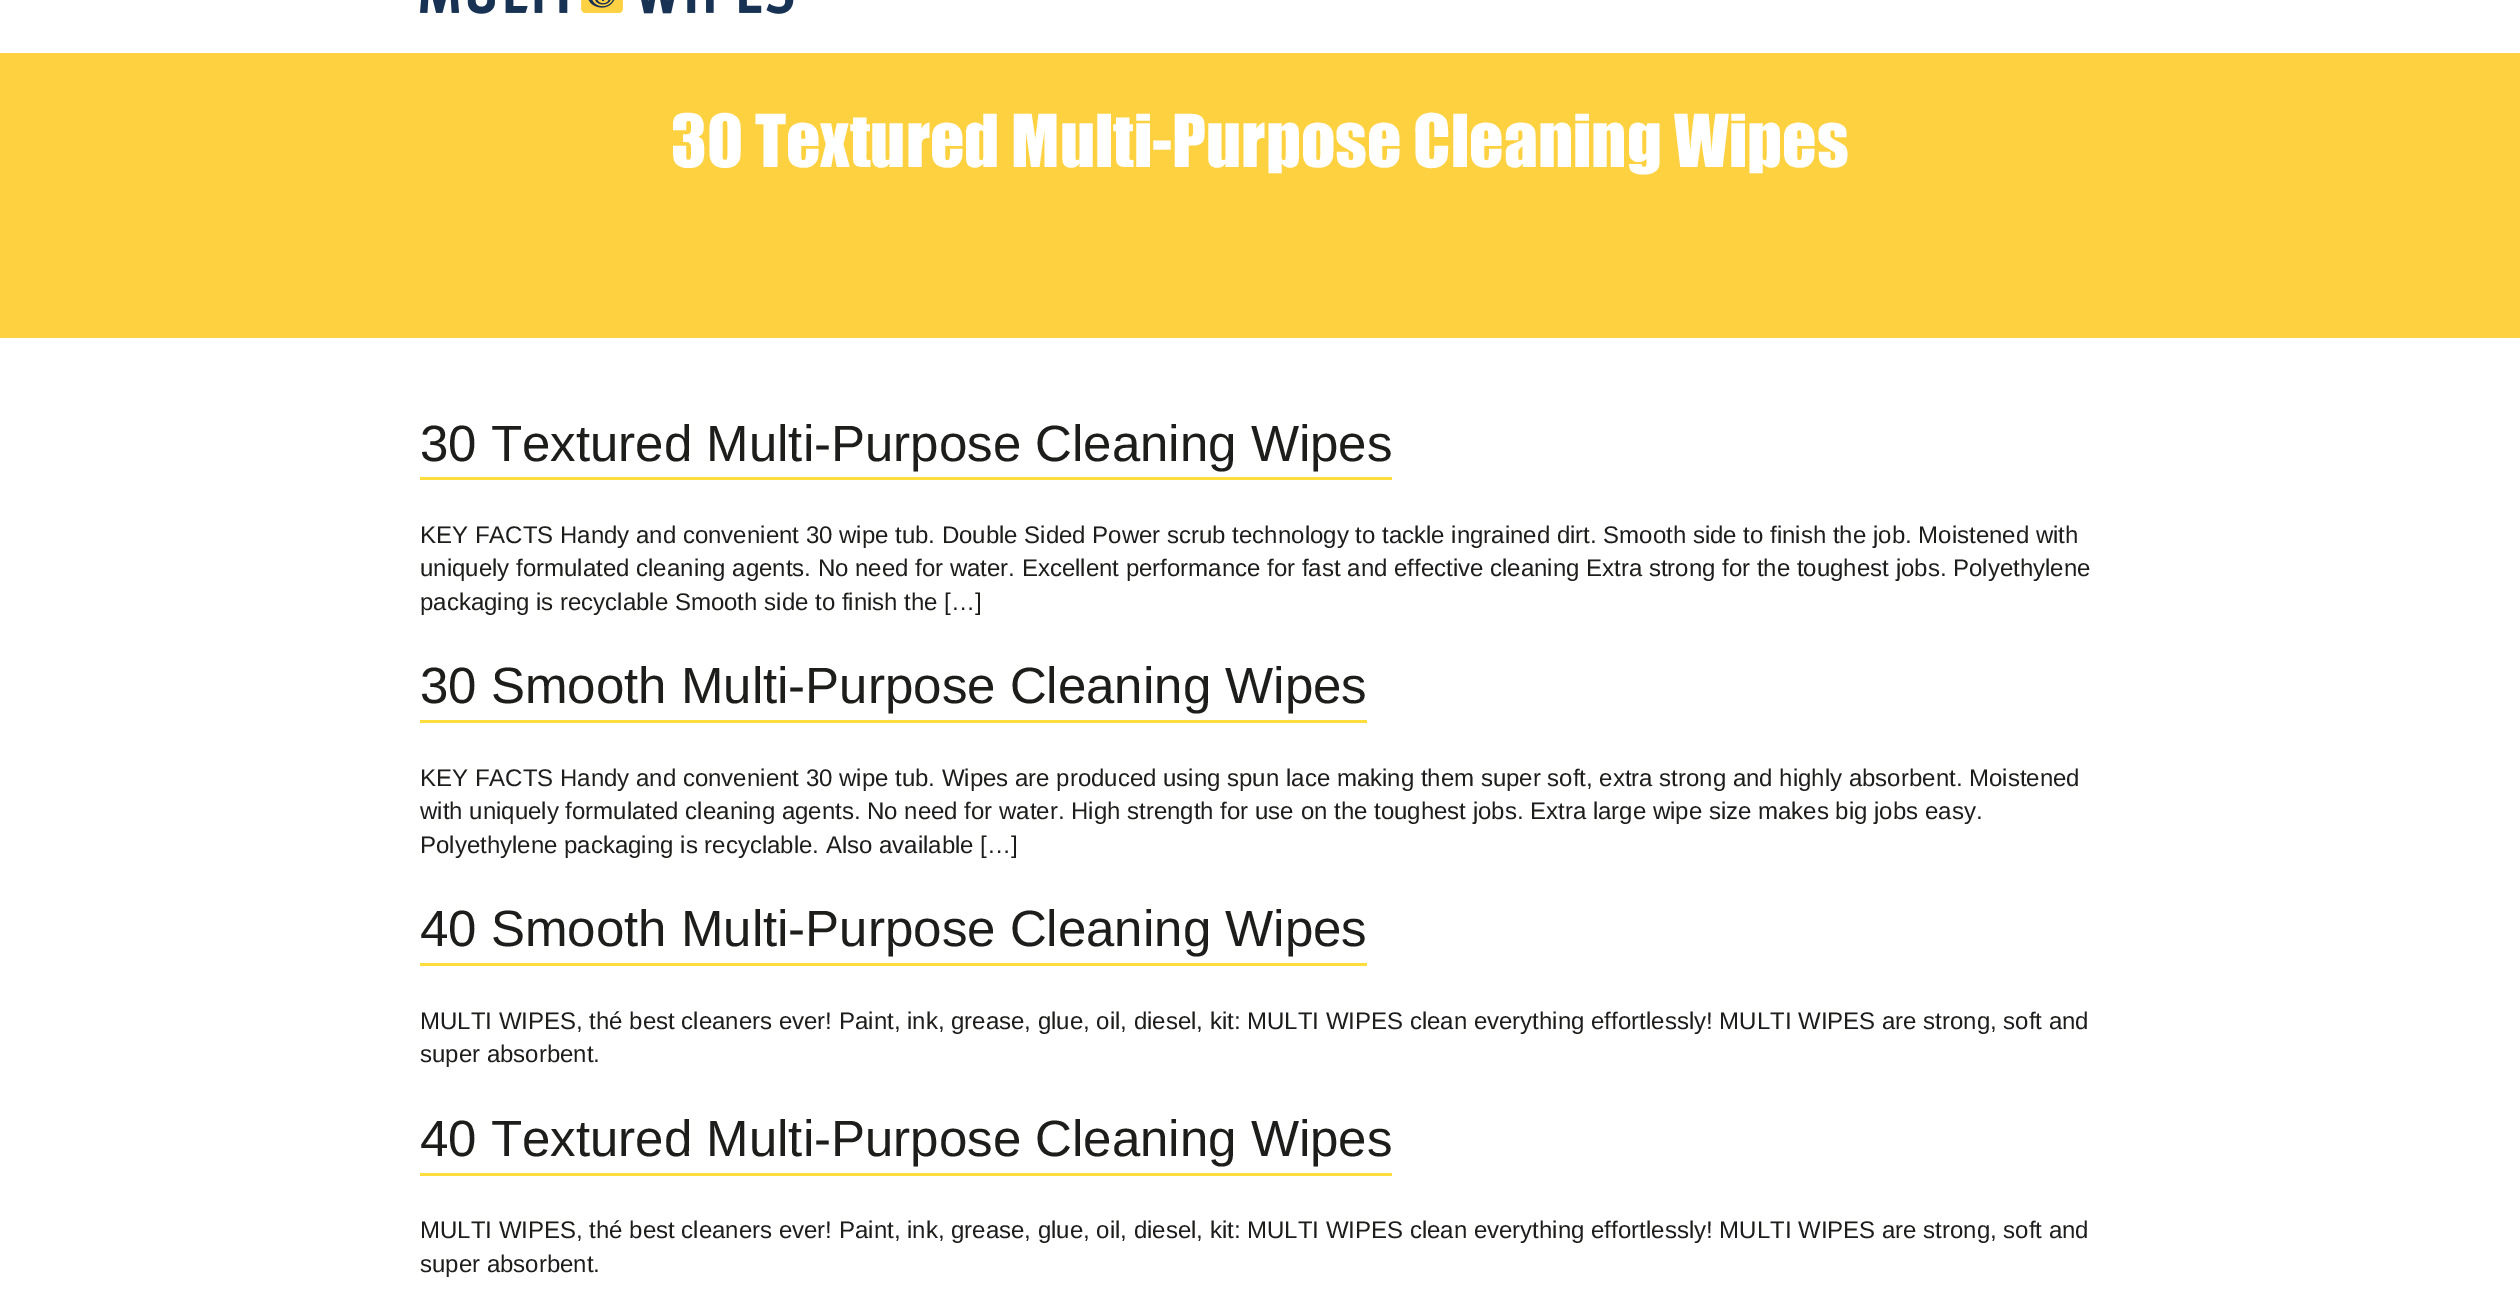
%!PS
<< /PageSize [2520 1300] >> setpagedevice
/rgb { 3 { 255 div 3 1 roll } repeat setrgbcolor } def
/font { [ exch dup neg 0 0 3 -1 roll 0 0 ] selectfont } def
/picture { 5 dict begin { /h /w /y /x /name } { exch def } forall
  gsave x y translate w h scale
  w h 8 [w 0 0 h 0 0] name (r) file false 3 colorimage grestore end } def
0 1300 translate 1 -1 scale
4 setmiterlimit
255 255 255 rgb
0 0 2520 1300 rectfill
(img/1.rgb) 420 0 374 14 picture
[
  [0 53 2520 285 254 209 65]
  [420 477 972 3 254 221 60]
  [420 720 947 3 254 221 60]
  [420 963 947 3 254 221 60]
  [420 1173 972 3 254 221 60]
] { aload pop rgb rectfill } forall
/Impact-Regular 67.5 font
255 255 255 rgb
671 167 moveto (30 Textured Multi-Purpose Cleaning Wipes) show
/LiberationSans-Regular 51 font
29 29 27 rgb
420 461 moveto (30 Textured Multi-Purpose Cleaning Wipes) show
/LiberationSans-Regular 24 font
[
  [(KEY FACTS Handy and convenient 30 wipe tub. Double Sided Power scrub technology to tackle ingrained dirt. Smooth side to finish the job. Moistened with) 420 543]
  [(uniquely formulated cleaning agents. No need for water. Excellent performance for fast and effective cleaning Extra strong for the toughest jobs. Polyethylene) 420 576]
  [(packaging is recyclable Smooth side to finish the […]) 420 610]
] { aload pop moveto show } forall
/LiberationSans-Regular 51 font
420 703 moveto (30 Smooth Multi-Purpose Cleaning Wipes) show
/LiberationSans-Regular 24 font
[
  [(KEY FACTS Handy and convenient 30 wipe tub. Wipes are produced using spun lace making them super soft, extra strong and highly absorbent. Moistened) 420 786]
  [(with uniquely formulated cleaning agents. No need for water. High strength for use on the toughest jobs. Extra large wipe size makes big jobs easy.) 420 819]
  [(Polyethylene packaging is recyclable. Also available […]) 420 853]
] { aload pop moveto show } forall
/LiberationSans-Regular 51 font
420 946 moveto (40 Smooth Multi-Purpose Cleaning Wipes) show
/LiberationSans-Regular 24 font
420 1029 moveto (MULTI WIPES, thé best cleaners ever! Paint, ink, grease, glue, oil, diesel, kit: MULTI WIPES clean everything effortlessly! MULTI WIPES are strong, soft and) show
420 1062 moveto (super absorbent.) show
/LiberationSans-Regular 51 font
420 1156 moveto (40 Textured Multi-Purpose Cleaning Wipes) show
/LiberationSans-Regular 24 font
420 1238 moveto (MULTI WIPES, thé best cleaners ever! Paint, ink, grease, glue, oil, diesel, kit: MULTI WIPES clean everything effortlessly! MULTI WIPES are strong, soft and) show
420 1272 moveto (super absorbent.) show
showpage
